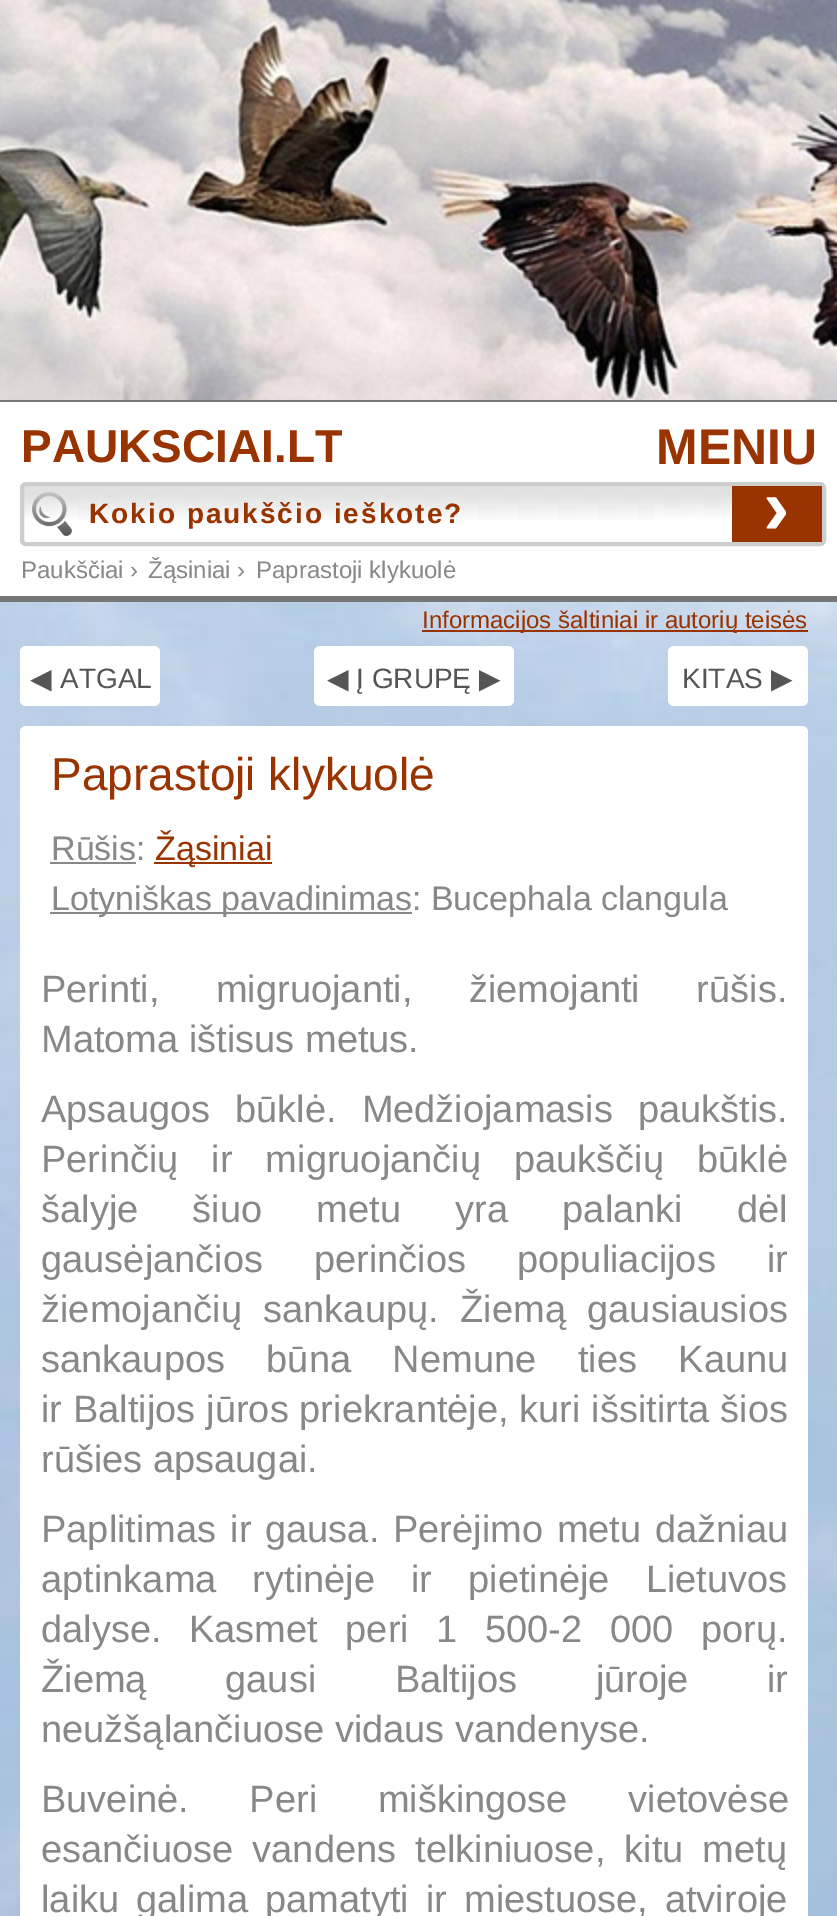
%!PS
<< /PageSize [837 1916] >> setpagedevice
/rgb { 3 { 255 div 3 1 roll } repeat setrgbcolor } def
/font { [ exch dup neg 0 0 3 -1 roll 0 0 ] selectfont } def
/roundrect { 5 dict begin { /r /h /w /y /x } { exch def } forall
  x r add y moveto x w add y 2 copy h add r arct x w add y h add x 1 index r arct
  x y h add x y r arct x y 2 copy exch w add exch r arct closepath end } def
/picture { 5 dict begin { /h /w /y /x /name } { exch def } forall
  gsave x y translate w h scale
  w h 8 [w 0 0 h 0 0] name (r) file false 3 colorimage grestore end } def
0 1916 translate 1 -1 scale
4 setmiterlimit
255 255 255 rgb
0 0 837 1916 rectfill
(img/1.rgb) 0 602 837 1314 picture
(img/2.rgb) 0 0 837 400 picture
119 119 119 rgb
0 400 837 2 rectfill
0 596 837 6 rectfill
(img/3.rgb) 20 486 806 32 picture
205 205 205 rgb
4 setlinewidth
22 484 802 60 4 roundrect stroke
(img/4.rgb) 32 492 40 44 picture
(img/5.rgb) 78 505 576 15 picture
153 51 0 rgb
732 486 90 56 rectfill
422 630 386 2 rectfill
255 255 255 rgb
20 646 140 60 6 roundrect fill
314 646 200 60 6 roundrect fill
668 646 140 60 6 roundrect fill
20 726 788 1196 6 roundrect fill
[
  [50 862 86 2 136 136 136]
  [154 862 118 2 153 51 0]
  [50 912 362 2 136 136 136]
] { aload pop rgb rectfill } forall
gsave
20 424 322 46 rectclip
/LiberationSans-Bold 46 font
153 51 0 rgb
21 462 moveto (PAUKSCIAI.LT) show
grestore
/LiberationSans-Bold 50 font
153 51 0 rgb
656 464 moveto (MENIU) show
/LiberationSans-Bold 28 font
89 523 moveto 2 0 (Kokio paukščio ieškote?) ashow
/LiberationSans-Bold 80 font
255 255 255 rgb
763 534 moveto (›) show
/LiberationSans-Regular 24 font
136 136 136 rgb
[
  [(Paukščiai ›) 21 578]
  [(Žąsiniai ›) 148 578]
  [(Paprastoji klykuolė) 256 578]
] { aload pop moveto show } forall
153 51 0 rgb
422 628 moveto (Informacijos šaltiniai ir autorių teisės) show
/DejaVuSans-Regular 28 font
85 85 85 rgb
30 688 moveto (◀) show
/LiberationSans-Regular 28 font
60 688 moveto (ATGAL) show
/DejaVuSans-Regular 28 font
327 688 moveto (◀) show
/LiberationSans-Regular 28 font
356 688 moveto (Į GRUPĘ) show
/DejaVuSans-Regular 28 font
479 688 moveto (▶) show
/LiberationSans-Regular 28 font
682 688 moveto (KITAS) show
/DejaVuSans-Regular 28 font
771 688 moveto (▶) show
/LiberationSans-Regular 46 font
153 51 0 rgb
51 790 moveto (Paprastoji klykuolė) show
/LiberationSans-Regular 34 font
136 136 136 rgb
51 860 moveto (Rūšis:) show
153 51 0 rgb
155 860 moveto (Žąsiniai) show
136 136 136 rgb
51 910 moveto (Lotyniškas pavadinimas: Bucephala clangula) show
/LiberationSans-Regular 38 font
41 1002 moveto 46 0 32 (Perinti, migruojanti, žiemojanti rūšis.) widthshow
41 1052 moveto (Matoma ištisus metus.) show
41 1122 moveto 14.5 0 32 (Apsaugos būklė. Medžiojamasis paukštis.) widthshow
41 1172 moveto 22.5 0 32 (Perinčių ir migruojančių paukščių būklė) widthshow
41 1222 moveto 43.75 0 32 (šalyje šiuo metu yra palanki dėl) widthshow
41 1272 moveto 40.5 0 32 (gausėjančios perinčios populiacijos ir) widthshow
41 1322 moveto 11 0 32 (žiemojančių sankaupų. Žiemą gausiausios) widthshow
41 1372 moveto 31 0 32 (sankaupos būna Nemune ties Kaunu) widthshow
41 1422 moveto 0.25 0 32 (ir Baltijos jūros priekrantėje, kuri išsitirta šios) widthshow
41 1472 moveto (rūšies apsaugai.) show
41 1542 moveto 3.25 0 32 (Paplitimas ir gausa. Perėjimo metu dažniau) widthshow
41 1592 moveto 25.5 0 32 (aptinkama rytinėje ir pietinėje Lietuvos) widthshow
41 1642 moveto 17 0 32 (dalyse. Kasmet peri 1 500-2 000 porų.) widthshow
41 1692 moveto 68 0 32 (Žiemą gausi Baltijos jūroje ir) widthshow
41 1742 moveto (neužšąlančiuose vidaus vandenyse.) show
41 1812 moveto 50 0 32 (Buveinė. Peri miškingose vietovėse) widthshow
41 1862 moveto 8.5 0 32 (esančiuose vandens telkiniuose, kitu metų) widthshow
41 1912 moveto 6.5 0 32 (laiku galima pamatyti ir miestuose, atviroje) widthshow
showpage
